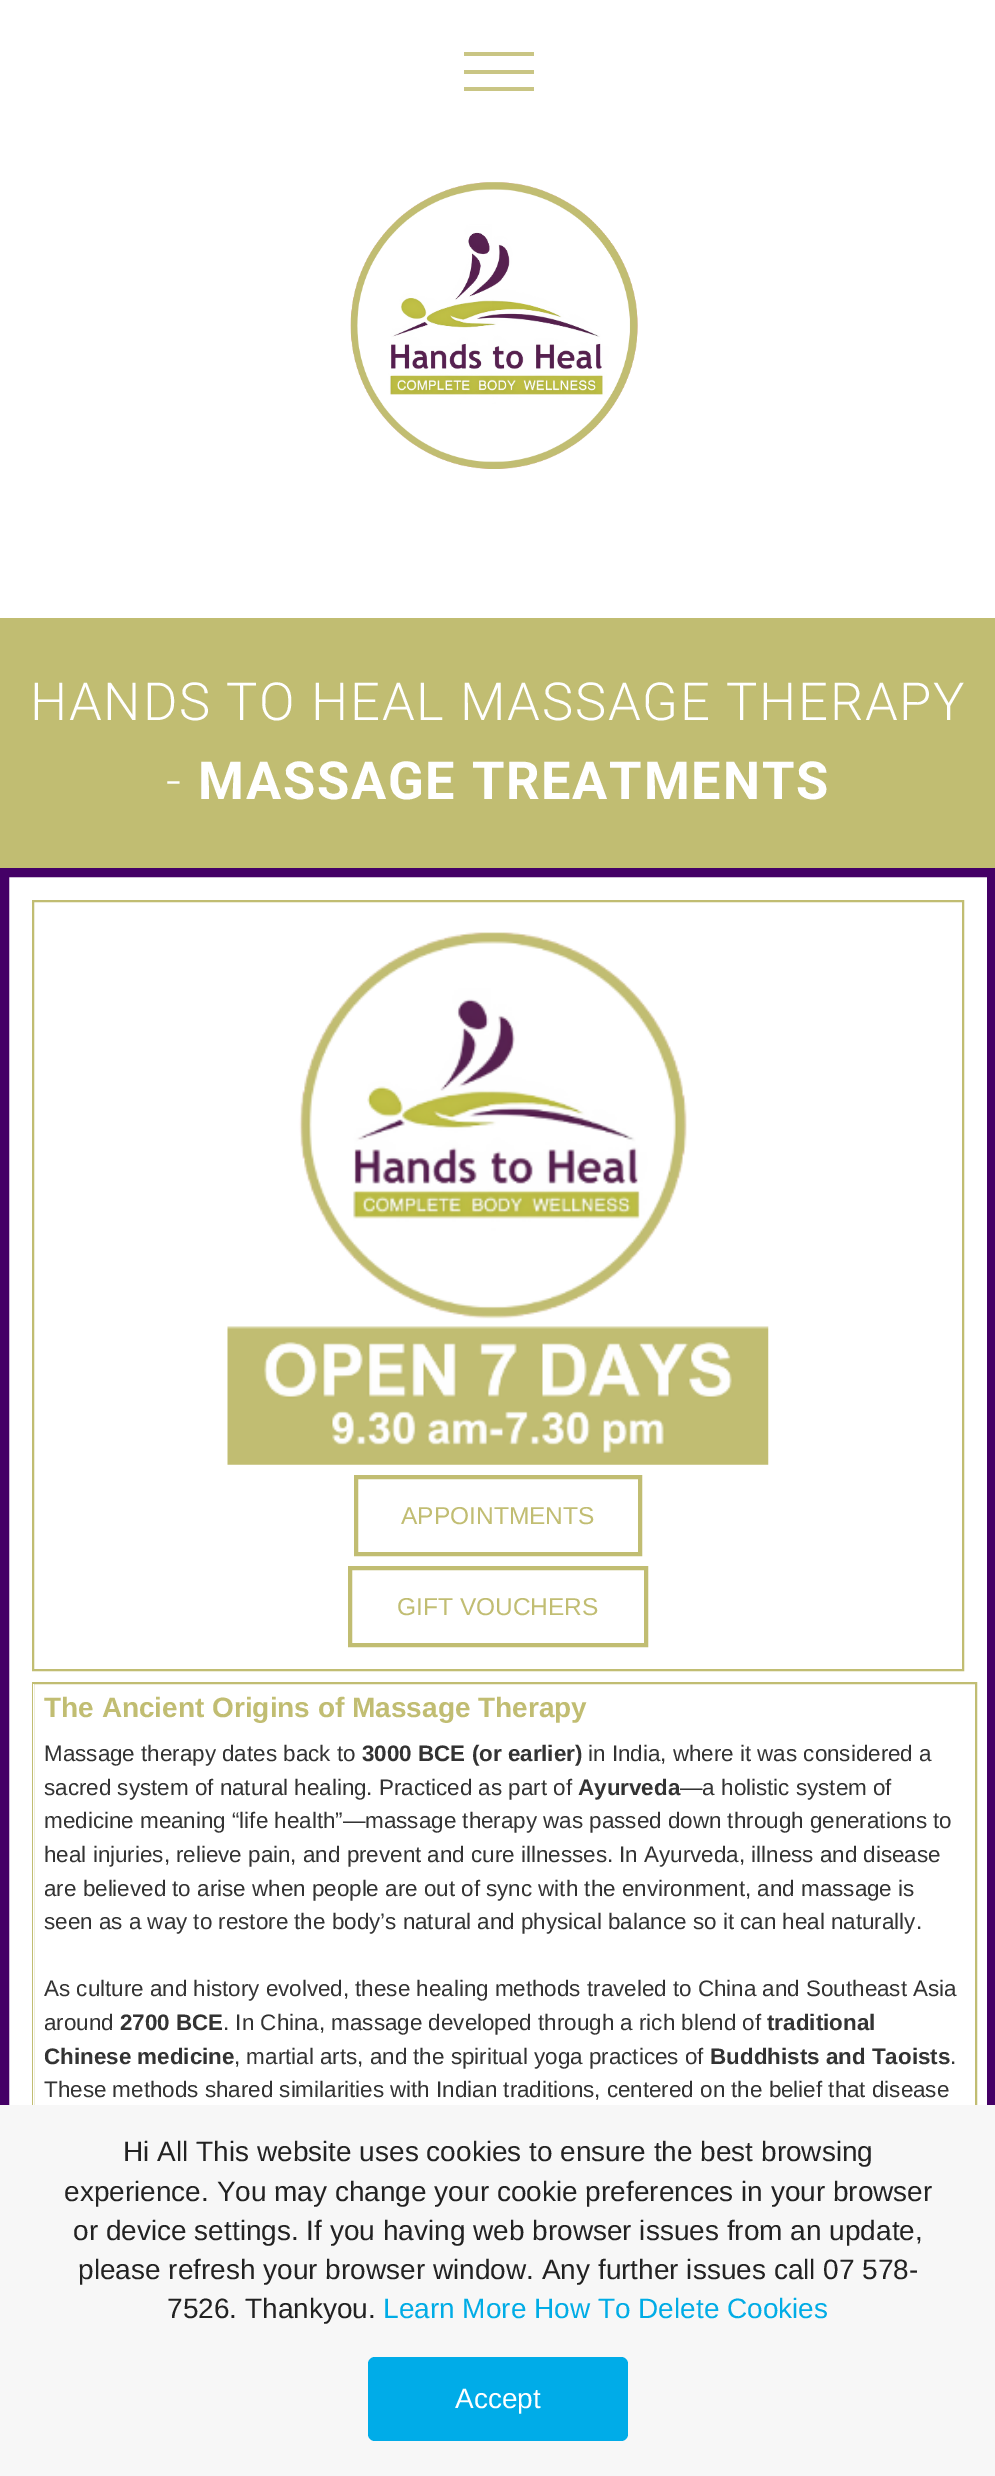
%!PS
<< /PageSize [995 2476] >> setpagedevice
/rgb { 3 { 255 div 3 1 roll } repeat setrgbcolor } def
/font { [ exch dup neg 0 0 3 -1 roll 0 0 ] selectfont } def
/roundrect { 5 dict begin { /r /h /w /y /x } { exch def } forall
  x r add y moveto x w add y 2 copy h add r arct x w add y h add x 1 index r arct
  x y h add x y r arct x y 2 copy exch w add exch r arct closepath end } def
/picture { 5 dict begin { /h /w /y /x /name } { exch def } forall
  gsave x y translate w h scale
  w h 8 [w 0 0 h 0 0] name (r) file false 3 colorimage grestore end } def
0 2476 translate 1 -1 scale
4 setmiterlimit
255 255 255 rgb
0 0 995 2476 rectfill
[
  [464 52 70 4 201 197 132]
  [464 70 70 4 201 197 132]
  [464 87 70 4 201 197 132]
] { aload pop rgb rectfill } forall
(img/1.rgb) 350 182 288 287 picture
193 189 114 rgb
0 618 995 250 rectfill
68 0 102 rgb
9 setlinewidth
4.5 872.5 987 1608 rectstroke
193 189 114 rgb
2 setlinewidth
33 901 930 769 rectstroke
(img/2.rgb) 227 932 542 533 picture
4 setlinewidth
356 1477 284 77 rectstroke
350 1568 296 77 rectstroke
2 setlinewidth
33 1683 943 738 rectstroke
255 255 255 rgb
33 1684 1 421 rectfill
247 247 247 rgb
0 2105 995 371 rectfill
0 172 232 rgb
368 2357 260 84 7 roundrect fill
/Roboto-Light 52.5 font
255 255 255 rgb
30 720 moveto 1.75 0 (HANDS TO HEAL MASSAGE THERAPY) ashow
166 799 moveto 1.75 0 (-) ashow
/Roboto-Bold 52.5 font
198 799 moveto 1.75 0 (MASSAGE TREATMENTS) ashow
/LiberationSans-Regular 24.5 font
193 189 114 rgb
401 1524 moveto (APPOINTMENTS) show
397 1615 moveto (GIFT VOUCHERS) show
/LiberationSans-Bold 28 font
44 1717 moveto (The Ancient Origins of Massage Therapy) show
/LiberationSans-Regular 22.4 font
51 51 51 rgb
44 1761 moveto (Massage therapy dates back to) show
/LiberationSans-Bold 22.4 font
362 1761 moveto (3000 BCE \(or earlier\)) show
/LiberationSans-Regular 22.4 font
588 1761 moveto (in India, where it was considered a) show
44 1795 moveto (sacred system of natural healing. Practiced as part of) show
/LiberationSans-Bold 22.4 font
578 1795 moveto (Ayurveda) show
/LiberationSans-Regular 22.4 font
[
  [(—a holistic system of) 680 1795]
  [(medicine meaning “life health”—massage therapy was passed down through generations to) 44 1828]
  [(heal injuries, relieve pain, and prevent and cure illnesses. In Ayurveda, illness and disease) 44 1862]
  [(are believed to arise when people are out of sync with the environment, and massage is) 44 1896]
  [(seen as a way to restore the body’s natural and physical balance so it can heal naturally.) 44 1929]
  [(As culture and history evolved, these healing methods traveled to China and Southeast Asia) 44 1996]
  [(around) 44 2030]
] { aload pop moveto show } forall
/LiberationSans-Bold 22.4 font
120 2030 moveto (2700 BCE) show
/LiberationSans-Regular 22.4 font
223 2030 moveto (. In China, massage developed through a rich blend of) show
/LiberationSans-Bold 22.4 font
767 2030 moveto (traditional) show
44 2064 moveto (Chinese medicine) show
/LiberationSans-Regular 22.4 font
234 2064 moveto (, martial arts, and the spiritual yoga practices of) show
/LiberationSans-Bold 22.4 font
710 2064 moveto (Buddhists and Taoists) show
/LiberationSans-Regular 22.4 font
950 2064 moveto (.) show
44 2097 moveto (These methods shared similarities with Indian traditions, centered on the belief that disease) show
/LiberationSans-Regular 28 font
34 34 34 rgb
[
  [(Hi All This website uses cookies to ensure the best browsing) 123 2161]
  [(experience. You may change your cookie preferences in your browser) 64 2201]
  [(or device settings. If you having web browser issues from an update,) 73 2240]
  [(please refresh your browser window. Any further issues call 07 578-) 78 2279]
  [(7526. Thankyou.) 167 2318]
] { aload pop moveto show } forall
0 172 230 rgb
383 2318 moveto (Learn More How To Delete Cookies) show
255 255 255 rgb
455 2408 moveto (Accept) show
showpage
